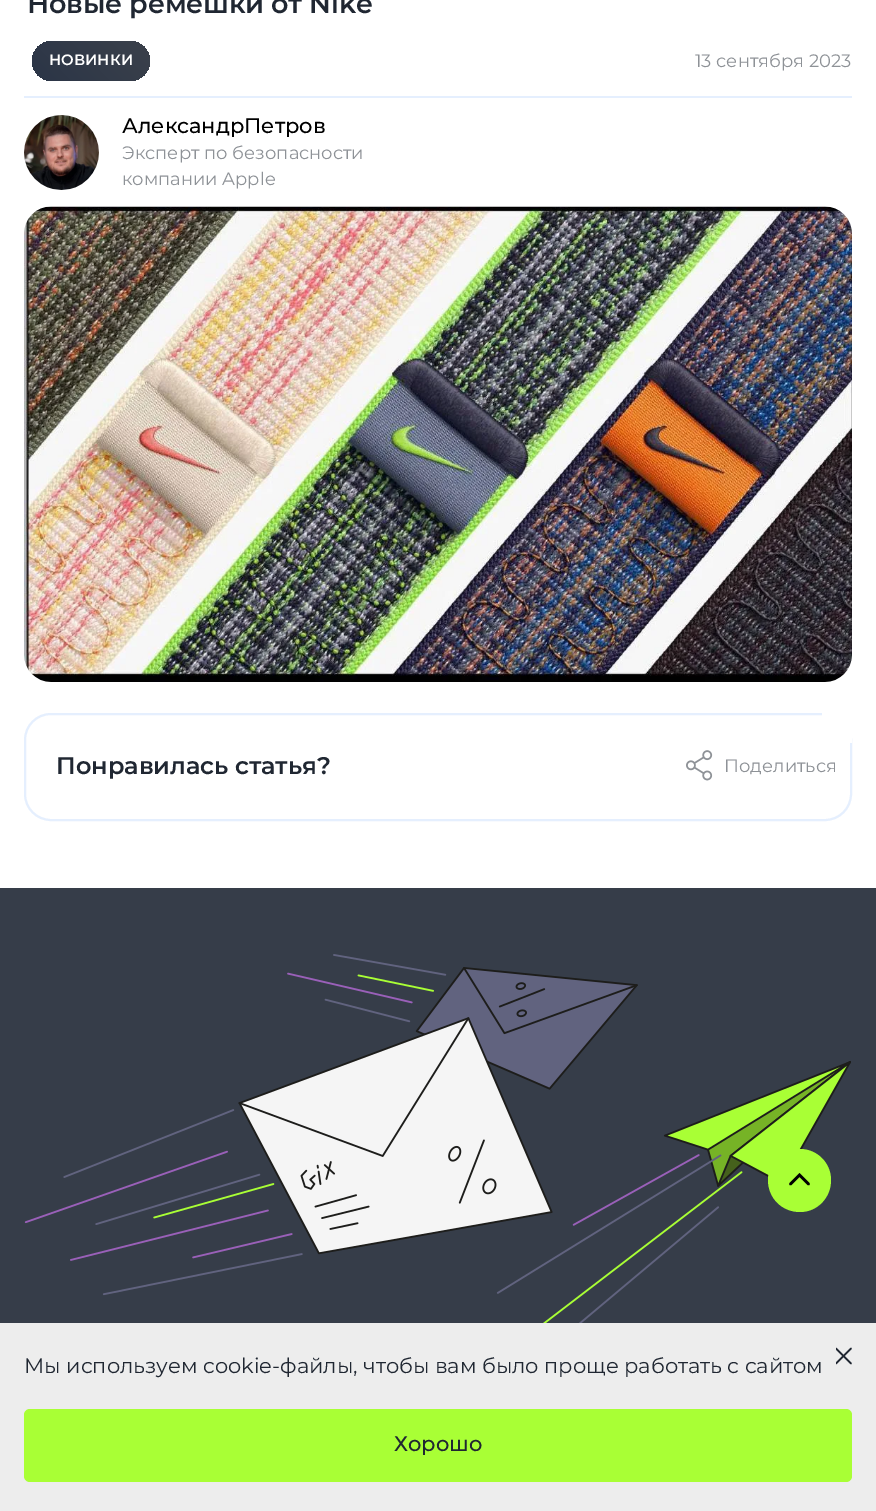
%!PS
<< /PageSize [876 1511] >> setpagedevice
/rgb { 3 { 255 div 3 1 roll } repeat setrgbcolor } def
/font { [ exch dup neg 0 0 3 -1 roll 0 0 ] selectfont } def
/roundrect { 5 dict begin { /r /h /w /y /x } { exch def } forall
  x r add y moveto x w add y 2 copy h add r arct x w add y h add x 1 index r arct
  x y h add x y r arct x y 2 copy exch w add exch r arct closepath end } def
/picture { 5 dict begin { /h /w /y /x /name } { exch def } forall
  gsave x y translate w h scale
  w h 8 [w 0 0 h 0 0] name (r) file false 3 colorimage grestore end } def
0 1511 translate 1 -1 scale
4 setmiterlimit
255 255 255 rgb
0 0 876 1511 rectfill
229 239 254 rgb
24 96 828 2 rectfill
gsave 32 41 118 40 20 roundrect clip newpath
<< /ShadingType 2 /ColorSpace /DeviceRGB /Coords [51 101 131 21] /Extend [true true] /Function << /FunctionType 2 /Domain [0 1] /C0 [0.169 0.208 0.278] /C1 [0.231 0.255 0.294] /N 1 >> >> shfill grestore
(img/1.rgb) 24 115 75 75 picture
(img/2.rgb) 24 206 828 476 picture
2 setlinewidth
25 714 826 106 26 roundrect stroke
255 255 255 rgb
822 713 30 30 rectfill
(img/3.rgb) 686 750 27 31 picture
54 61 73 rgb
0 888 876 435 rectfill
(img/4.rgb) 24 954 827 369 picture
169 255 53 rgb
768 1180 moveto 768 1163 782 1149 800 1149 curveto 817 1149 831 1163 831 1180 curveto 831 1198 817 1212 800 1212 curveto 782 1212 768 1198 768 1180 curveto closepath fill
0 0 0 rgb
2.5 setlinewidth
1 setlinecap
808.5 1184 moveto 799.5 1175 lineto 790.5 1184 lineto stroke
237 237 237 rgb
0 1323 876 188 rectfill
gsave
836 1347 16 18 rectclip
32 39 50 rgb
1.5 setlinewidth
1 setlinejoin
836 1363.5 moveto 851 1348.5 lineto 851 1363.5 moveto 836 1348.5 lineto stroke
grestore
169 255 53 rgb
24 1409 828 73 6 roundrect fill
/Montserrat-SemiBold 27 font
32 39 50 rgb
27 13 moveto -0.2 0 (Новые ремешки от Nike) ashow
/Montserrat-SemiBold 15 font
255 255 255 rgb
49 65 moveto (НОВИНКИ) show
/Montserrat-Regular 18 font
142 146 151 rgb
695 67 moveto (13 сентября 2023) show
/Montserrat-Medium 21 font
0 0 0 rgb
122 133 moveto (АлександрПетров) show
/Montserrat-Regular 18 font
142 146 151 rgb
122 159 moveto (Эксперт по безопасности) show
122 185 moveto (компании Apple) show
/Montserrat-SemiBold 24 font
32 39 50 rgb
56 774 moveto (Понравилась статья?) show
/Montserrat-Regular 18 font
142 146 151 rgb
724 772 moveto (Поделиться) show
/Montserrat-Regular 21 font
32 39 50 rgb
24 1373 moveto (Мы используем cookie-файлы, чтобы вам было проще работать с сайтом) show
/Montserrat-Medium 21 font
394 1451 moveto (Хорошо) show
showpage
